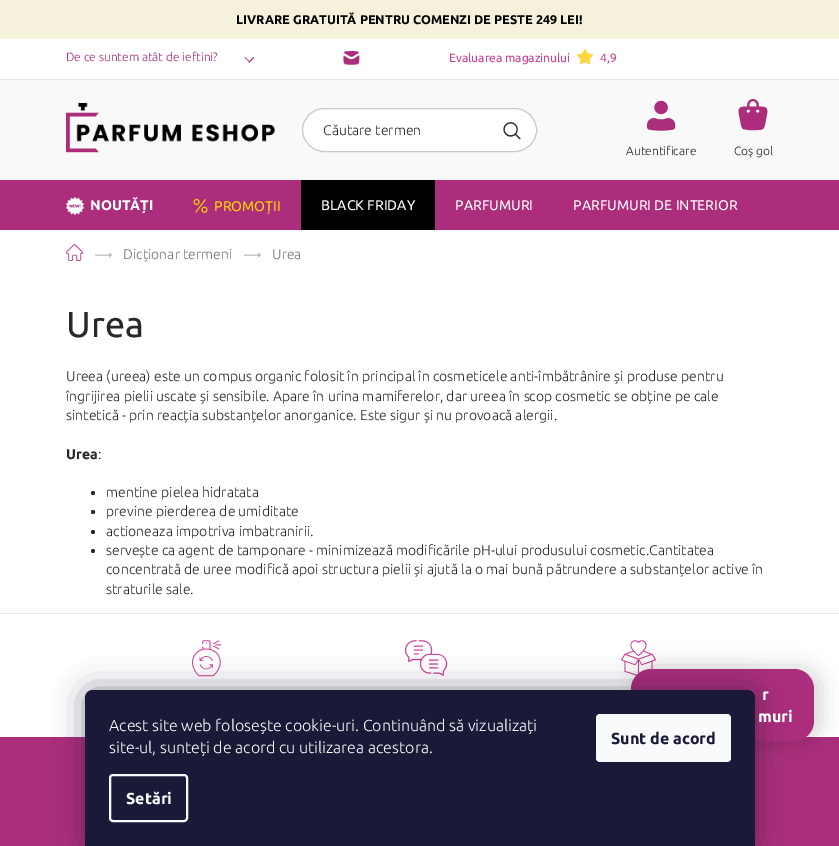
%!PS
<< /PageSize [839 846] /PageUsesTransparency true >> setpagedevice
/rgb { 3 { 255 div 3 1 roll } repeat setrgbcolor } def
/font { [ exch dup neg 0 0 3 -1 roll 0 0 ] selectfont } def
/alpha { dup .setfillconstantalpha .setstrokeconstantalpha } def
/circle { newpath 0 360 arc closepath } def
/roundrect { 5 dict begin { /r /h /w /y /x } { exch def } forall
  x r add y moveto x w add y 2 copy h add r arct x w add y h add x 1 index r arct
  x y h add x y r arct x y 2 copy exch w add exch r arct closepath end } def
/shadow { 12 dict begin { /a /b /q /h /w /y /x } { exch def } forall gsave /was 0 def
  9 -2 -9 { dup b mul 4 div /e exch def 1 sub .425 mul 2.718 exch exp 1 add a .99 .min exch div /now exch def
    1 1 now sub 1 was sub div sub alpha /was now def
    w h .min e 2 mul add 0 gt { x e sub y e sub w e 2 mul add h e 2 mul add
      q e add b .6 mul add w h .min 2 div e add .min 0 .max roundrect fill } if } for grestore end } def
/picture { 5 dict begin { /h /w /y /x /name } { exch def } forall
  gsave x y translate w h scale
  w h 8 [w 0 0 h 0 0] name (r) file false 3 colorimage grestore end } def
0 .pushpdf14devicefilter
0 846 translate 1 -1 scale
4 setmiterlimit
255 255 255 rgb
0 0 839 846 rectfill
246 241 219 rgb
0 0 839 39 rectfill
236 233 235 rgb
0 79 839 1 rectfill
171 45 123 rgb
254.5 57.5 moveto 249.5 62.5 lineto 248.5 62 lineto 253.5 57 lineto closepath fill
250 62 moveto 249.5 62.5 lineto 244.5 57.5 lineto 245 57 lineto closepath fill
(img/1.rgb) 343 51 17 14 picture
(img/2.rgb) 577 49 16 15 picture
249 249 249 rgb
0 80 839 100 rectfill
171 45 123 rgb
0 180 839 50 rectfill
(img/3.rgb) 66 103 210 50 picture
255 255 255 rgb
302.5 108.5 234 43 21.5 roundrect gsave fill grestore
201 201 201 rgb
stroke
(img/4.rgb) 503 122 18 18 picture
(img/5.rgb) 647 100 29 31 picture
(img/6.rgb) 738 99 30 32 picture
(img/7.rgb) 66 197 18 18 picture
(img/8.rgb) 193 198 15 15 picture
0 0 0 rgb
301 180 134 50 rectfill
(img/9.rgb) 66 244 17 17 picture
(img/10.rgb) 95 252 17 6 picture
(img/10.rgb) 244 252 17 6 picture
40 40 40 rgb
93 493 2 circle fill
93 512 2 circle fill
93 532 2 circle fill
93 551 2 circle fill
236 233 235 rgb
0 613 839 1 rectfill
(img/11.rgb) 192 640 30 37 picture
(img/12.rgb) 405 640 43 36 picture
(img/13.rgb) 621 640 35 36 picture
171 46 123 rgb
0 737 839 109 rectfill
0 0 0 rgb
633 666 189 78 23 10 0.15 shadow
171 45 123 rgb
631 669 183 72 20 roundrect fill
27 25 57 rgb
85 690 670 156 8 15 0.5 shadow
26 25 55 rgb
93 690 moveto 747 690 lineto 751.5 690 755 693.5 755 698 curveto 755 846 lineto 85 846 lineto 85 698 lineto 85 693.5 88.5 690 93 690 curveto closepath fill
248 250 251 rgb
2 setlinewidth
110 775 77 46 3 roundrect stroke
596 714 135 48 4 roundrect fill
/Ubuntu-Bold 12.6 font
0 0 0 rgb
236 24 moveto (LIVRARE GRATUITĂ PENTRU COMENZI DE PESTE 249 LEI!) show
/Ubuntu-Light 12 font
171 45 123 rgb
66 61 moveto (De ce suntem atât de ieftini?) show
/Ubuntu-Regular 12 font
205 62 150 rgb
449 62 moveto (Evaluarea magazinului) show
600 62 moveto (4,9) show
/Ubuntu-Light 14 font
40 40 40 rgb
323 135 moveto (Căutare termen) show
/Ubuntu-Light 12 font
626 155 moveto (Autentificare) show
734 155 moveto (Coş gol) show
/Ubuntu-Bold 14 font
255 255 255 rgb
90 210 moveto (NOUTĂȚI) show
/Ubuntu-Regular 14 font
255 214 0 rgb
214 211 moveto (PROMOȚII) show
255 255 255 rgb
[
  [(BLACK FRIDAY) 321 210]
  [(PARFUMURI) 455 210]
  [(PARFUMURI DE INTERIOR) 573 210]
] { aload pop moveto show } forall
/Ubuntu-Light 14 font
117 117 117 rgb
123 259 moveto (Dicționar termeni) show
272 259 moveto (Urea) show
/Ubuntu-Regular 36 font
40 40 40 rgb
66 337 moveto (Urea) show
/Ubuntu-Light 14 font
[
  [(Ureea \(ureea\) este un compus organic folosit în principal în cosmeticele anti-îmbătrânire și produse pentru) 66 381]
  [(îngrijirea pielii uscate și sensibile. Apare în urina mamiferelor, dar ureea în scop cosmetic se obține pe cale) 66 401]
  [(sintetică - prin reacția substanțelor anorganice. Este sigur și nu provoacă alergii.) 66 420]
] { aload pop moveto show } forall
/Ubuntu-Bold 14 font
66 459 moveto (Urea) show
/Ubuntu-Light 14 font
[
  [(:) 98 459]
  [(mentine pielea hidratata) 106 497]
  [(previne pierderea de umiditate) 106 516]
  [(actioneaza impotriva imbatranirii.) 106 536]
  [(servește ca agent de tamponare - minimizează modificările pH-ului produsului cosmetic.Cantitatea) 106 555]
  [(concentrată de uree modifică apoi structura pielii și ajută la o mai bună pătrundere a substanțelor active în) 106 574]
  [(straturile sale.) 106 594]
] { aload pop moveto show } forall
/Ubuntu-Bold 16 font
255 255 255 rgb
762 700 moveto (r) show
758 722 moveto (muri) show
/Ubuntu-Light 16 font
248 250 251 rgb
109 731 moveto (Acest site web folosește cookie-uri. Continuând să vizualizați) show
109 753 moveto (site-ul, sunteți de acord cu utilizarea acestora.) show
/Ubuntu-Bold 16 font
126 804 moveto (Setări) show
26 25 55 rgb
611 744 moveto (Sunt de acord) show
.poppdf14devicefilter showpage
